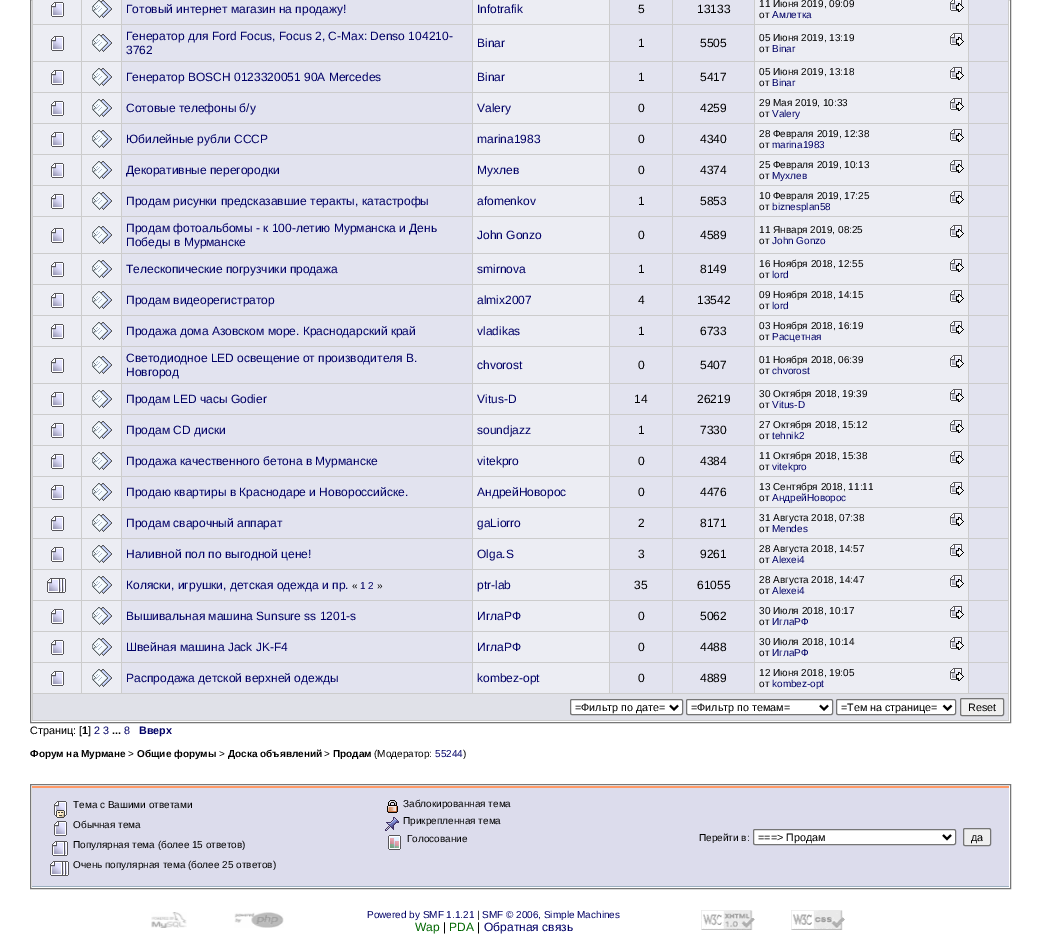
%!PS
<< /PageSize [1041 951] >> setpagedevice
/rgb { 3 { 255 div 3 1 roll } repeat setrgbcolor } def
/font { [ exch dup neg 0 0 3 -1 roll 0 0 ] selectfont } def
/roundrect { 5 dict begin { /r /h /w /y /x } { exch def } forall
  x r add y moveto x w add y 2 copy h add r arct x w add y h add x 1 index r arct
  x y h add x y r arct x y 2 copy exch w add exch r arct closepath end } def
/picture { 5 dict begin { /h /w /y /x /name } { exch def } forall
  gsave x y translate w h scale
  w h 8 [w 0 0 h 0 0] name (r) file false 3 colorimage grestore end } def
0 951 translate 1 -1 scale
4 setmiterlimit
255 255 255 rgb
0 0 1041 951 rectfill
119 119 119 rgb
30.5 -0.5 980 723 rectstroke
204 204 204 rgb
32 0 977 721 rectfill
236 237 243 rgb
33 0 48 24 rectfill
(img/1.rgb) 51 2 13 15 picture
82 0 39 24 rectfill
(img/2.rgb) 92 0 20 18 picture
[
  [122 0 350 24 226 227 239]
  [473 0 136 24 236 237 243]
  [610 0 62 24 226 227 239]
  [673 0 81 24 226 227 239]
  [755 0 213 24 236 237 243]
] { aload pop rgb rectfill } forall
(img/3.rgb) 950 0 14 12 picture
226 227 239 rgb
969 0 39 24 rectfill
236 237 243 rgb
33 25 48 36 rectfill
(img/1.rgb) 51 36 13 15 picture
82 25 39 36 rectfill
(img/2.rgb) 92 34 20 18 picture
[
  [122 25 350 36 226 227 239]
  [473 25 136 36 236 237 243]
  [610 25 62 36 226 227 239]
  [673 25 81 36 226 227 239]
  [755 25 213 36 236 237 243]
] { aload pop rgb rectfill } forall
(img/4.rgb) 950 33 14 13 picture
226 227 239 rgb
969 25 39 36 rectfill
236 237 243 rgb
33 62 48 30 rectfill
(img/1.rgb) 51 70 13 15 picture
82 62 39 30 rectfill
(img/2.rgb) 92 68 20 18 picture
[
  [122 62 350 30 226 227 239]
  [473 62 136 30 236 237 243]
  [610 62 62 30 226 227 239]
  [673 62 81 30 226 227 239]
  [755 62 213 30 236 237 243]
] { aload pop rgb rectfill } forall
(img/4.rgb) 950 67 14 13 picture
226 227 239 rgb
969 62 39 30 rectfill
236 237 243 rgb
33 93 48 30 rectfill
(img/1.rgb) 51 101 13 15 picture
82 93 39 30 rectfill
(img/2.rgb) 92 99 20 18 picture
[
  [122 93 350 30 226 227 239]
  [473 93 136 30 236 237 243]
  [610 93 62 30 226 227 239]
  [673 93 81 30 226 227 239]
  [755 93 213 30 236 237 243]
] { aload pop rgb rectfill } forall
(img/4.rgb) 950 98 14 13 picture
226 227 239 rgb
969 93 39 30 rectfill
236 237 243 rgb
33 124 48 30 rectfill
(img/1.rgb) 51 132 13 15 picture
82 124 39 30 rectfill
(img/2.rgb) 92 130 20 18 picture
[
  [122 124 350 30 226 227 239]
  [473 124 136 30 236 237 243]
  [610 124 62 30 226 227 239]
  [673 124 81 30 226 227 239]
  [755 124 213 30 236 237 243]
] { aload pop rgb rectfill } forall
(img/4.rgb) 950 129 14 13 picture
226 227 239 rgb
969 124 39 30 rectfill
236 237 243 rgb
33 155 48 30 rectfill
(img/1.rgb) 51 163 13 15 picture
82 155 39 30 rectfill
(img/2.rgb) 92 161 20 18 picture
[
  [122 155 350 30 226 227 239]
  [473 155 136 30 236 237 243]
  [610 155 62 30 226 227 239]
  [673 155 81 30 226 227 239]
  [755 155 213 30 236 237 243]
] { aload pop rgb rectfill } forall
(img/4.rgb) 950 160 14 13 picture
226 227 239 rgb
969 155 39 30 rectfill
236 237 243 rgb
33 186 48 30 rectfill
(img/1.rgb) 51 194 13 15 picture
82 186 39 30 rectfill
(img/2.rgb) 92 192 20 18 picture
[
  [122 186 350 30 226 227 239]
  [473 186 136 30 236 237 243]
  [610 186 62 30 226 227 239]
  [673 186 81 30 226 227 239]
  [755 186 213 30 236 237 243]
] { aload pop rgb rectfill } forall
(img/4.rgb) 950 191 14 13 picture
226 227 239 rgb
969 186 39 30 rectfill
236 237 243 rgb
33 217 48 36 rectfill
(img/1.rgb) 51 228 13 15 picture
82 217 39 36 rectfill
(img/2.rgb) 92 226 20 18 picture
[
  [122 217 350 36 226 227 239]
  [473 217 136 36 236 237 243]
  [610 217 62 36 226 227 239]
  [673 217 81 36 226 227 239]
  [755 217 213 36 236 237 243]
] { aload pop rgb rectfill } forall
(img/4.rgb) 950 225 14 13 picture
226 227 239 rgb
969 217 39 36 rectfill
236 237 243 rgb
33 254 48 30 rectfill
(img/1.rgb) 51 262 13 15 picture
82 254 39 30 rectfill
(img/2.rgb) 92 260 20 18 picture
[
  [122 254 350 30 226 227 239]
  [473 254 136 30 236 237 243]
  [610 254 62 30 226 227 239]
  [673 254 81 30 226 227 239]
  [755 254 213 30 236 237 243]
] { aload pop rgb rectfill } forall
(img/4.rgb) 950 259 14 13 picture
226 227 239 rgb
969 254 39 30 rectfill
236 237 243 rgb
33 285 48 30 rectfill
(img/1.rgb) 51 293 13 15 picture
82 285 39 30 rectfill
(img/2.rgb) 92 291 20 18 picture
[
  [122 285 350 30 226 227 239]
  [473 285 136 30 236 237 243]
  [610 285 62 30 226 227 239]
  [673 285 81 30 226 227 239]
  [755 285 213 30 236 237 243]
] { aload pop rgb rectfill } forall
(img/4.rgb) 950 290 14 13 picture
226 227 239 rgb
969 285 39 30 rectfill
236 237 243 rgb
33 316 48 30 rectfill
(img/1.rgb) 51 324 13 15 picture
82 316 39 30 rectfill
(img/2.rgb) 92 322 20 18 picture
[
  [122 316 350 30 226 227 239]
  [473 316 136 30 236 237 243]
  [610 316 62 30 226 227 239]
  [673 316 81 30 226 227 239]
  [755 316 213 30 236 237 243]
] { aload pop rgb rectfill } forall
(img/4.rgb) 950 321 14 13 picture
226 227 239 rgb
969 316 39 30 rectfill
236 237 243 rgb
33 347 48 36 rectfill
(img/1.rgb) 51 358 13 15 picture
82 347 39 36 rectfill
(img/2.rgb) 92 356 20 18 picture
[
  [122 347 350 36 226 227 239]
  [473 347 136 36 236 237 243]
  [610 347 62 36 226 227 239]
  [673 347 81 36 226 227 239]
  [755 347 213 36 236 237 243]
] { aload pop rgb rectfill } forall
(img/4.rgb) 950 355 14 13 picture
226 227 239 rgb
969 347 39 36 rectfill
236 237 243 rgb
33 384 48 30 rectfill
(img/1.rgb) 51 392 13 15 picture
82 384 39 30 rectfill
(img/2.rgb) 92 390 20 18 picture
[
  [122 384 350 30 226 227 239]
  [473 384 136 30 236 237 243]
  [610 384 62 30 226 227 239]
  [673 384 81 30 226 227 239]
  [755 384 213 30 236 237 243]
] { aload pop rgb rectfill } forall
(img/4.rgb) 950 389 14 13 picture
226 227 239 rgb
969 384 39 30 rectfill
236 237 243 rgb
33 415 48 30 rectfill
(img/1.rgb) 51 423 13 15 picture
82 415 39 30 rectfill
(img/2.rgb) 92 421 20 18 picture
[
  [122 415 350 30 226 227 239]
  [473 415 136 30 236 237 243]
  [610 415 62 30 226 227 239]
  [673 415 81 30 226 227 239]
  [755 415 213 30 236 237 243]
] { aload pop rgb rectfill } forall
(img/4.rgb) 950 420 14 13 picture
226 227 239 rgb
969 415 39 30 rectfill
236 237 243 rgb
33 446 48 30 rectfill
(img/1.rgb) 51 454 13 15 picture
82 446 39 30 rectfill
(img/2.rgb) 92 452 20 18 picture
[
  [122 446 350 30 226 227 239]
  [473 446 136 30 236 237 243]
  [610 446 62 30 226 227 239]
  [673 446 81 30 226 227 239]
  [755 446 213 30 236 237 243]
] { aload pop rgb rectfill } forall
(img/4.rgb) 950 451 14 13 picture
226 227 239 rgb
969 446 39 30 rectfill
236 237 243 rgb
33 477 48 30 rectfill
(img/1.rgb) 51 485 13 15 picture
82 477 39 30 rectfill
(img/2.rgb) 92 483 20 18 picture
[
  [122 477 350 30 226 227 239]
  [473 477 136 30 236 237 243]
  [610 477 62 30 226 227 239]
  [673 477 81 30 226 227 239]
  [755 477 213 30 236 237 243]
] { aload pop rgb rectfill } forall
(img/4.rgb) 950 482 14 13 picture
226 227 239 rgb
969 477 39 30 rectfill
236 237 243 rgb
33 508 48 30 rectfill
(img/1.rgb) 51 516 13 15 picture
82 508 39 30 rectfill
(img/2.rgb) 92 514 20 18 picture
[
  [122 508 350 30 226 227 239]
  [473 508 136 30 236 237 243]
  [610 508 62 30 226 227 239]
  [673 508 81 30 226 227 239]
  [755 508 213 30 236 237 243]
] { aload pop rgb rectfill } forall
(img/4.rgb) 950 513 14 13 picture
226 227 239 rgb
969 508 39 30 rectfill
236 237 243 rgb
33 539 48 30 rectfill
(img/1.rgb) 51 547 13 15 picture
82 539 39 30 rectfill
(img/2.rgb) 92 545 20 18 picture
[
  [122 539 350 30 226 227 239]
  [473 539 136 30 236 237 243]
  [610 539 62 30 226 227 239]
  [673 539 81 30 226 227 239]
  [755 539 213 30 236 237 243]
] { aload pop rgb rectfill } forall
(img/4.rgb) 950 544 14 13 picture
226 227 239 rgb
969 539 39 30 rectfill
236 237 243 rgb
33 570 48 30 rectfill
(img/5.rgb) 47 578 19 15 picture
82 570 39 30 rectfill
(img/2.rgb) 92 576 20 18 picture
[
  [122 570 350 30 226 227 239]
  [473 570 136 30 236 237 243]
  [610 570 62 30 226 227 239]
  [673 570 81 30 226 227 239]
  [755 570 213 30 236 237 243]
] { aload pop rgb rectfill } forall
(img/4.rgb) 950 575 14 13 picture
226 227 239 rgb
969 570 39 30 rectfill
236 237 243 rgb
33 601 48 30 rectfill
(img/1.rgb) 51 609 13 15 picture
82 601 39 30 rectfill
(img/2.rgb) 92 607 20 18 picture
[
  [122 601 350 30 226 227 239]
  [473 601 136 30 236 237 243]
  [610 601 62 30 226 227 239]
  [673 601 81 30 226 227 239]
  [755 601 213 30 236 237 243]
] { aload pop rgb rectfill } forall
(img/4.rgb) 950 606 14 13 picture
226 227 239 rgb
969 601 39 30 rectfill
236 237 243 rgb
33 632 48 30 rectfill
(img/1.rgb) 51 640 13 15 picture
82 632 39 30 rectfill
(img/2.rgb) 92 638 20 18 picture
[
  [122 632 350 30 226 227 239]
  [473 632 136 30 236 237 243]
  [610 632 62 30 226 227 239]
  [673 632 81 30 226 227 239]
  [755 632 213 30 236 237 243]
] { aload pop rgb rectfill } forall
(img/4.rgb) 950 637 14 13 picture
226 227 239 rgb
969 632 39 30 rectfill
236 237 243 rgb
33 663 48 30 rectfill
(img/1.rgb) 51 671 13 15 picture
82 663 39 30 rectfill
(img/2.rgb) 92 669 20 18 picture
[
  [122 663 350 30 226 227 239]
  [473 663 136 30 236 237 243]
  [610 663 62 30 226 227 239]
  [673 663 81 30 226 227 239]
  [755 663 213 30 236 237 243]
] { aload pop rgb rectfill } forall
(img/4.rgb) 950 668 14 13 picture
226 227 239 rgb
969 663 39 30 rectfill
224 225 232 rgb
33 694 975 26 rectfill
255 255 255 rgb
570.5 699.5 112 15 1.5 roundrect gsave fill grestore
118 118 118 rgb
stroke
0 0 0 rgb
2 setlinewidth
670 705.5 moveto 674 709.5 lineto 678 705.5 lineto stroke
255 255 255 rgb
686.5 699.5 146 15 1.5 roundrect gsave fill grestore
118 118 118 rgb
1 setlinewidth
stroke
0 0 0 rgb
2 setlinewidth
820 705.5 moveto 824 709.5 lineto 828 705.5 lineto stroke
255 255 255 rgb
836.5 699.5 119 15 1.5 roundrect gsave fill grestore
118 118 118 rgb
1 setlinewidth
stroke
0 0 0 rgb
2 setlinewidth
943.5 705.5 moveto 947.5 709.5 lineto 951.5 705.5 lineto stroke
239 239 239 rgb
960.5 698.5 43 17 1.5 roundrect gsave fill grestore
118 118 118 rgb
1 setlinewidth
stroke
119 119 119 rgb
30.5 784.5 980 104 rectstroke
[
  [32 788 977 98 220 220 236]
  [32 786 977 2 255 153 102]
  [32 886 977 1 155 174 191]
] { aload pop rgb rectfill } forall
(img/6.rgb) 54 801 13 17 picture
(img/7.rgb) 54 821 13 15 picture
(img/8.rgb) 52 841 16 15 picture
(img/9.rgb) 50 861 19 15 picture
(img/10.rgb) 387 800 11 13 picture
(img/11.rgb) 385 817 14 14 picture
(img/12.rgb) 388 835 13 15 picture
255 255 255 rgb
753.5 829.5 202 15 1.5 roundrect gsave fill grestore
118 118 118 rgb
stroke
0 0 0 rgb
2 setlinewidth
943 835 moveto 947 839 lineto 951 835 lineto stroke
239 239 239 rgb
963.5 828.5 27 17 1.5 roundrect gsave fill grestore
118 118 118 rgb
1 setlinewidth
stroke
(img/13.rgb) 151 912 36 16 picture
(img/14.rgb) 234 912 50 16 picture
(img/15.rgb) 701 910 54 20 picture
(img/16.rgb) 791 910 54 20 picture
/LiberationSans-Regular 12 font
0 0 102 rgb
126 13 moveto (Готовый интернет магазин на продажу!) show
477 13 moveto (Infotrafik) show
0 0 0 rgb
638 13 moveto (5) show
697 13 moveto (13133) show
/LiberationSans-Regular 10 font
759 7 moveto (11 Июня 2019, 09:09) show
759 18 moveto (от) show
0 0 102 rgb
772 18 moveto (Амлетка) show
/LiberationSans-Regular 12 font
[
  [(Генератор для Ford Focus, Focus 2, C-Max: Denso 104210-) 126 40]
  [(3762) 126 54]
  [(Binar) 477 47]
] { aload pop moveto show } forall
0 0 0 rgb
638 47 moveto (1) show
700 47 moveto (5505) show
/LiberationSans-Regular 10 font
759 41 moveto (05 Июня 2019, 13:19) show
759 52 moveto (от) show
0 0 102 rgb
772 52 moveto (Binar) show
/LiberationSans-Regular 12 font
126 81 moveto (Генератор BOSCH 0123320051 90A Mercedes) show
477 81 moveto (Binar) show
0 0 0 rgb
638 81 moveto (1) show
700 81 moveto (5417) show
/LiberationSans-Regular 10 font
759 75 moveto (05 Июня 2019, 13:18) show
759 86 moveto (от) show
0 0 102 rgb
772 86 moveto (Binar) show
/LiberationSans-Regular 12 font
126 112 moveto (Сотовые телефоны б/у) show
477 112 moveto (Valery) show
0 0 0 rgb
638 112 moveto (0) show
700 112 moveto (4259) show
/LiberationSans-Regular 10 font
759 106 moveto (29 Мая 2019, 10:33) show
759 117 moveto (от) show
0 0 102 rgb
772 117 moveto (Valery) show
/LiberationSans-Regular 12 font
126 143 moveto (Юбилейные рубли СССР) show
477 143 moveto (marina1983) show
0 0 0 rgb
638 143 moveto (0) show
700 143 moveto (4340) show
/LiberationSans-Regular 10 font
759 137 moveto (28 Февраля 2019, 12:38) show
759 148 moveto (от) show
0 0 102 rgb
772 148 moveto (marina1983) show
/LiberationSans-Regular 12 font
126 174 moveto (Декоративные перегородки) show
477 174 moveto (Мухлев) show
0 0 0 rgb
638 174 moveto (0) show
700 174 moveto (4374) show
/LiberationSans-Regular 10 font
759 168 moveto (25 Февраля 2019, 10:13) show
759 179 moveto (от) show
0 0 102 rgb
772 179 moveto (Мухлев) show
/LiberationSans-Regular 12 font
126 205 moveto (Продам рисунки предсказавшие теракты, катастрофы) show
477 205 moveto (afomenkov) show
0 0 0 rgb
638 205 moveto (1) show
700 205 moveto (5853) show
/LiberationSans-Regular 10 font
759 199 moveto (10 Февраля 2019, 17:25) show
759 210 moveto (от) show
0 0 102 rgb
772 210 moveto (biznesplan58) show
/LiberationSans-Regular 12 font
[
  [(Продам фотоальбомы - к 100-летию Мурманска и День) 126 232]
  [(Победы в Мурманске) 126 246]
  [(John Gonzo) 477 239]
] { aload pop moveto show } forall
0 0 0 rgb
638 239 moveto (0) show
700 239 moveto (4589) show
/LiberationSans-Regular 10 font
759 233 moveto (11 Января 2019, 08:25) show
759 244 moveto (от) show
0 0 102 rgb
772 244 moveto (John Gonzo) show
/LiberationSans-Regular 12 font
126 273 moveto (Телескопические погрузчики продажа) show
477 273 moveto (smirnova) show
0 0 0 rgb
638 273 moveto (1) show
700 273 moveto (8149) show
/LiberationSans-Regular 10 font
759 267 moveto (16 Ноября 2018, 12:55) show
759 278 moveto (от) show
0 0 102 rgb
772 278 moveto (lord) show
/LiberationSans-Regular 12 font
126 304 moveto (Продам видеорегистратор) show
477 304 moveto (almix2007) show
0 0 0 rgb
638 304 moveto (4) show
697 304 moveto (13542) show
/LiberationSans-Regular 10 font
759 298 moveto (09 Ноября 2018, 14:15) show
759 309 moveto (от) show
0 0 102 rgb
772 309 moveto (lord) show
/LiberationSans-Regular 12 font
126 335 moveto (Продажа дома Азовском море. Краснодарский край) show
477 335 moveto (vladikas) show
0 0 0 rgb
638 335 moveto (1) show
700 335 moveto (6733) show
/LiberationSans-Regular 10 font
759 329 moveto (03 Ноября 2018, 16:19) show
759 340 moveto (от) show
0 0 102 rgb
772 340 moveto (Расцетная) show
/LiberationSans-Regular 12 font
[
  [(Светодиодное LED освещение от производителя В.) 126 362]
  [(Новгород) 126 376]
  [(chvorost) 477 369]
] { aload pop moveto show } forall
0 0 0 rgb
638 369 moveto (0) show
700 369 moveto (5407) show
/LiberationSans-Regular 10 font
759 363 moveto (01 Ноября 2018, 06:39) show
759 374 moveto (от) show
0 0 102 rgb
772 374 moveto (chvorost) show
/LiberationSans-Regular 12 font
126 403 moveto (Продам LED часы Godier) show
477 403 moveto (Vitus-D) show
0 0 0 rgb
634 403 moveto (14) show
697 403 moveto (26219) show
/LiberationSans-Regular 10 font
759 397 moveto (30 Октября 2018, 19:39) show
759 408 moveto (от) show
0 0 102 rgb
772 408 moveto (Vitus-D) show
/LiberationSans-Regular 12 font
126 434 moveto (Продам CD диски) show
477 434 moveto (soundjazz) show
0 0 0 rgb
638 434 moveto (1) show
700 434 moveto (7330) show
/LiberationSans-Regular 10 font
759 428 moveto (27 Октября 2018, 15:12) show
759 439 moveto (от) show
0 0 102 rgb
772 439 moveto (tehnik2) show
/LiberationSans-Regular 12 font
126 465 moveto (Продажа качественного бетона в Мурманске) show
477 465 moveto (vitekpro) show
0 0 0 rgb
638 465 moveto (0) show
700 465 moveto (4384) show
/LiberationSans-Regular 10 font
759 459 moveto (11 Октября 2018, 15:38) show
759 470 moveto (от) show
0 0 102 rgb
772 470 moveto (vitekpro) show
/LiberationSans-Regular 12 font
126 496 moveto (Продаю квартиры в Краснодаре и Новороссийске.) show
477 496 moveto (АндрейНоворос) show
0 0 0 rgb
638 496 moveto (0) show
700 496 moveto (4476) show
/LiberationSans-Regular 10 font
759 490 moveto (13 Сентября 2018, 11:11) show
759 501 moveto (от) show
0 0 102 rgb
772 501 moveto (АндрейНоворос) show
/LiberationSans-Regular 12 font
126 527 moveto (Продам сварочный аппарат) show
477 527 moveto (gaLiorro) show
0 0 0 rgb
638 527 moveto (2) show
700 527 moveto (8171) show
/LiberationSans-Regular 10 font
759 521 moveto (31 Августа 2018, 07:38) show
759 532 moveto (от) show
0 0 102 rgb
772 532 moveto (Mendes) show
/LiberationSans-Regular 12 font
126 558 moveto (Наливной пол по выгодной цене!) show
477 558 moveto (Olga.S) show
0 0 0 rgb
638 558 moveto (3) show
700 558 moveto (9261) show
/LiberationSans-Regular 10 font
759 552 moveto (28 Августа 2018, 14:57) show
759 563 moveto (от) show
0 0 102 rgb
772 563 moveto (Alexei4) show
/LiberationSans-Regular 12 font
126 589 moveto (Коляски, игрушки, детская одежда и пр.) show
/LiberationSans-Regular 10 font
0 0 0 rgb
352 589 moveto («) show
0 0 102 rgb
360 589 moveto (1 2) show
0 0 0 rgb
377 589 moveto (») show
/LiberationSans-Regular 12 font
0 0 102 rgb
477 589 moveto (ptr-lab) show
0 0 0 rgb
634 589 moveto (35) show
697 589 moveto (61055) show
/LiberationSans-Regular 10 font
759 583 moveto (28 Августа 2018, 14:47) show
759 594 moveto (от) show
0 0 102 rgb
772 594 moveto (Alexei4) show
/LiberationSans-Regular 12 font
126 620 moveto (Вышивальная машина Sunsure ss 1201-s) show
477 620 moveto (ИглаРФ) show
0 0 0 rgb
638 620 moveto (0) show
700 620 moveto (5062) show
/LiberationSans-Regular 10 font
759 614 moveto (30 Июля 2018, 10:17) show
759 625 moveto (от) show
0 0 102 rgb
772 625 moveto (ИглаРФ) show
/LiberationSans-Regular 12 font
126 651 moveto (Швейная машина Jack JK-F4) show
477 651 moveto (ИглаРФ) show
0 0 0 rgb
638 651 moveto (0) show
700 651 moveto (4488) show
/LiberationSans-Regular 10 font
759 645 moveto (30 Июля 2018, 10:14) show
759 656 moveto (от) show
0 0 102 rgb
772 656 moveto (ИглаРФ) show
/LiberationSans-Regular 12 font
126 682 moveto (Распродажа детской верхней одежды) show
477 682 moveto (kombez-opt) show
0 0 0 rgb
638 682 moveto (0) show
700 682 moveto (4889) show
/LiberationSans-Regular 10 font
759 676 moveto (12 Июня 2018, 19:05) show
759 687 moveto (от) show
0 0 102 rgb
772 687 moveto (kombez-opt) show
/LiberationSans-Regular 10.75 font
0 0 0 rgb
[
  [(=Фильтр по дате=) 575 711]
  [(=Фильтр по темам=) 691 711]
  [(=Тем на странице=) 841 711]
  [(Reset) 968 711]
  [(Страниц: [) 30 734]
] { aload pop moveto show } forall
/LiberationSans-Bold 10.75 font
82 734 moveto (1) show
/LiberationSans-Regular 10.75 font
88 734 moveto (]) show
0 0 102 rgb
94 734 moveto (2 3) show
/LiberationSans-Bold 10.75 font
0 0 0 rgb
112 734 moveto (...) show
/LiberationSans-Regular 10.75 font
0 0 102 rgb
124 734 moveto (8) show
/LiberationSans-Bold 10.75 font
139 734 moveto (Вверх) show
/LiberationSans-Bold 10 font
0 0 0 rgb
30 757 moveto (Форум на Мурмане) show
/LiberationSans-Regular 10 font
128 757 moveto (>) show
/LiberationSans-Bold 10 font
137 757 moveto (Общие форумы) show
/LiberationSans-Regular 10 font
219 757 moveto (>) show
/LiberationSans-Bold 10 font
228 757 moveto (Доска объявлений) show
/LiberationSans-Regular 10 font
324 757 moveto (>) show
/LiberationSans-Bold 10 font
333 757 moveto (Продам) show
/LiberationSans-Regular 10 font
374 757 moveto (\(Модератор:) show
0 0 102 rgb
435 757 moveto (55244) show
0 0 0 rgb
[
  [(\)) 463 757]
  [(Тема с Вашими ответами) 73 808]
  [(Обычная тема) 73 828]
  [(Популярная тема \(более 15 ответов\)) 73 848]
  [(Очень популярная тема \(более 25 ответов\)) 73 868]
  [(Заблокированная тема) 403 807]
  [(Прикрепленная тема) 403 824]
  [(Голосование) 407 842]
  [(Перейти в:) 699 841]
] { aload pop moveto show } forall
/LiberationSans-Regular 10.75 font
758 841 moveto (===> Продам) show
971 841 moveto (да) show
/LiberationSans-Regular 10 font
0 0 102 rgb
367 918 moveto (Powered by SMF 1.1.21) show
0 0 0 rgb
477 918 moveto (|) show
0 0 102 rgb
482 918 moveto (SMF © 2006, Simple Machines) show
/LiberationSans-Regular 12 font
0 102 0 rgb
415 931 moveto (Wap) show
0 0 0 rgb
443 931 moveto (|) show
0 102 0 rgb
449 931 moveto (PDA) show
0 0 0 rgb
477 931 moveto (|) show
0 0 102 rgb
484 931 moveto (Обратная связь) show
showpage
